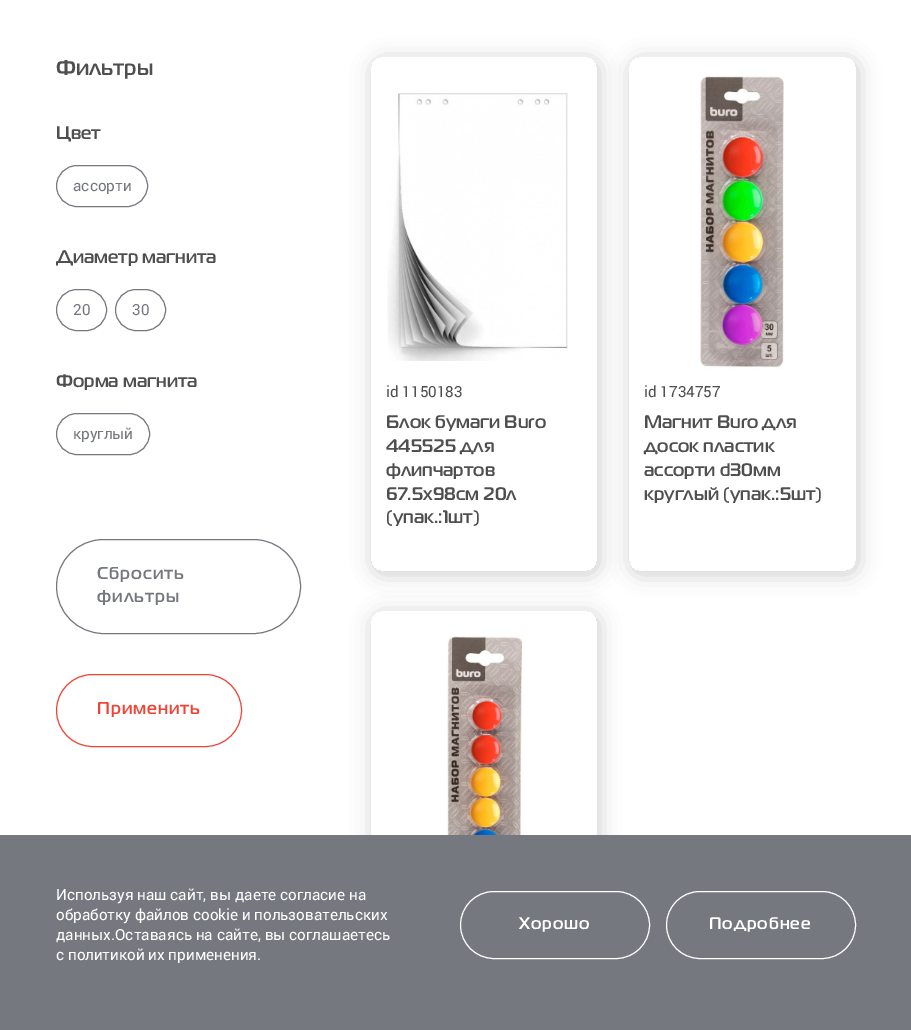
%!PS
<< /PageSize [911 1030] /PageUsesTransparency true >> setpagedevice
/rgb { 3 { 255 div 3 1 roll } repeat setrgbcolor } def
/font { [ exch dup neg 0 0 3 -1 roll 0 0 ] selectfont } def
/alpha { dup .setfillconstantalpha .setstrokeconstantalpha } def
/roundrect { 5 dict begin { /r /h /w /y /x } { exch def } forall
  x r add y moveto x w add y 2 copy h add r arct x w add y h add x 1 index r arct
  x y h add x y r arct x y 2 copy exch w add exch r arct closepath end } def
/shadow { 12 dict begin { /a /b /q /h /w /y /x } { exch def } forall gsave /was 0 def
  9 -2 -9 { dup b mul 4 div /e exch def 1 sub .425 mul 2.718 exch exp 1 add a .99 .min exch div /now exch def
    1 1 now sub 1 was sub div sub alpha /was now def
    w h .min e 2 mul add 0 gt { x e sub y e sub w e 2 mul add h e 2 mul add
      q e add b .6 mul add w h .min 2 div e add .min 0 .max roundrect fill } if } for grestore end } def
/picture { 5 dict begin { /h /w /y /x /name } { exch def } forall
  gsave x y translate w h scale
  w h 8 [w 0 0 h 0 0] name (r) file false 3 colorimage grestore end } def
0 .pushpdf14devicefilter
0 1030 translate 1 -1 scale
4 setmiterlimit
255 255 255 rgb
0 0 911 1030 rectfill
117 120 127 rgb
56.5 165.5 91 41 20.5 roundrect stroke
56.5 289.5 50 41 20.5 roundrect stroke
115.5 289.5 50 41 20.5 roundrect stroke
56.5 413.5 93 41 20.5 roundrect stroke
56.5 539.5 244 94 47 roundrect stroke
240 67 54 rgb
56.5 674.5 185 72 36 roundrect stroke
gsave
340 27 moveto 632 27 lineto 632 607 lineto 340 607 lineto closepath 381 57 moveto 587 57 lineto 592.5 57 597 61.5 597 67 curveto 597 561 lineto 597 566.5 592.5 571 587 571 curveto 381 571 lineto 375.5 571 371 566.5 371 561 curveto 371 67 lineto 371 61.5 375.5 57 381 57 curveto closepath eoclip newpath
0 0 0 rgb
373 60 226 514 10 10.5 0.2 shadow
grestore
(img/1.rgb) 387 93 181 268 picture
gsave
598 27 moveto 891 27 lineto 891 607 lineto 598 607 lineto closepath 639 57 moveto 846 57 lineto 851.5 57 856 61.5 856 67 curveto 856 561 lineto 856 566.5 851.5 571 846 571 curveto 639 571 lineto 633.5 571 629 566.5 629 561 curveto 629 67 lineto 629 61.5 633.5 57 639 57 curveto closepath eoclip newpath
0 0 0 rgb
631 60 227 514 10 10.5 0.2 shadow
grestore
(img/2.rgb) 700 76 84 293 picture
gsave
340 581 moveto 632 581 lineto 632 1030 lineto 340 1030 lineto closepath 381 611 moveto 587 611 lineto 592.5 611 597 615.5 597 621 curveto 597 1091 lineto 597 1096.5 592.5 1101 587 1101 curveto 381 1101 lineto 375.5 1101 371 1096.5 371 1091 curveto 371 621 lineto 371 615.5 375.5 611 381 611 curveto closepath eoclip newpath
0 0 0 rgb
373 614 226 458 10 10.5 0.2 shadow
grestore
(img/3.rgb) 446 636 77 199 picture
117 120 127 rgb
0 835 911 195 rectfill
255 255 255 rgb
460.5 891.5 189 67 33.5 roundrect stroke
666.5 891.5 189 67 33.5 roundrect stroke
/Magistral-Medium 21.5 font
79 79 79 rgb
56 75 moveto (Фильтры) show
/Magistral-Medium 18.25 font
56 139 moveto (Цвет) show
/Roboto-Regular 15.3 font
117 120 127 rgb
73 191 moveto (ассорти) show
gsave
56 123 245 372 rectclip
/Magistral-Medium 18.25 font
79 79 79 rgb
56 263 moveto (Диаметр магнита) show
grestore
73 315 moveto (20) show
132 315 moveto (30) show
/Magistral-Medium 18.25 font
79 79 79 rgb
56 387 moveto (Форма магнита) show
/Roboto-Regular 15.3 font
117 120 127 rgb
73 439 moveto (круглый) show
/Magistral-Medium 17.25 font
97 579 moveto 1 0 (Сбросить) ashow
97 602 moveto 1 0 (фильтры) ashow
240 67 54 rgb
97 714 moveto 1 0 (Применить) ashow
/Roboto-Regular 15.3 font
79 79 79 rgb
386 397 moveto (id 1150183) show
/Magistral-Medium 18.25 font
[
  [(Блок бумаги Buro) 386 428]
  [(445525 для) 386 452]
  [(флипчартов) 386 476]
  [(67.5х98см 20л) 386 500]
  [(\(упак.:1шт\)) 386 523]
] { aload pop moveto show } forall
/Roboto-Regular 15.3 font
644 397 moveto (id 1734757) show
/Magistral-Medium 18.25 font
[
  [(Магнит Buro для) 644 428]
  [(досок пластик) 644 452]
  [(ассорти d30мм) 644 476]
  [(круглый \(упак.:5шт\)) 644 500]
] { aload pop moveto show } forall
/Roboto-Regular 15.3 font
255 255 255 rgb
[
  [(Используя наш сайт, вы даете согласие на) 56 900]
  [(обработку файлов cookie и пользовательских) 56 920]
  [(данных.Оставаясь на сайте, вы соглашаетесь) 56 940]
  [(с политикой их применения.) 56 960]
] { aload pop moveto show } forall
/Magistral-Medium 16.75 font
519 929 moveto 1 0 (Хорошо) ashow
709 929 moveto 1 0 (Подробнее) ashow
.poppdf14devicefilter showpage
